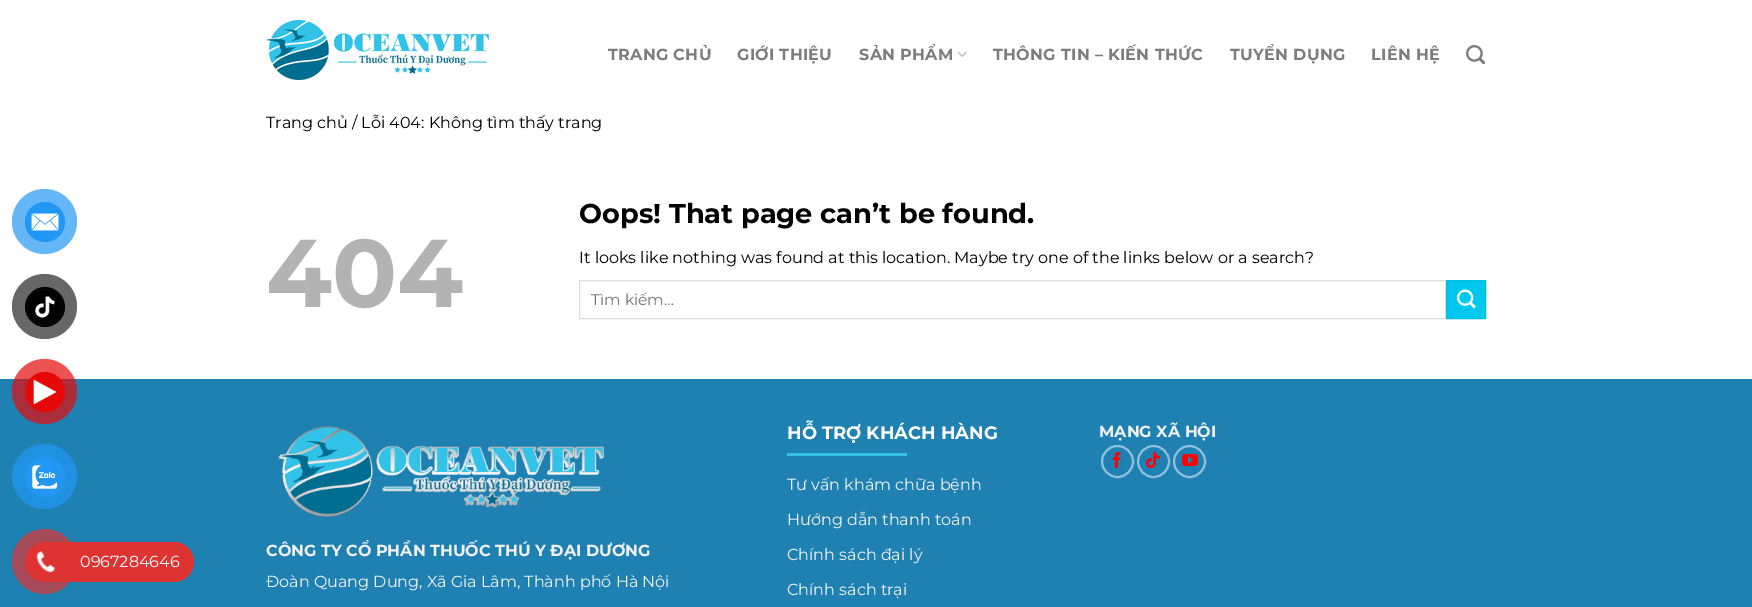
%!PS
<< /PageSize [1752 607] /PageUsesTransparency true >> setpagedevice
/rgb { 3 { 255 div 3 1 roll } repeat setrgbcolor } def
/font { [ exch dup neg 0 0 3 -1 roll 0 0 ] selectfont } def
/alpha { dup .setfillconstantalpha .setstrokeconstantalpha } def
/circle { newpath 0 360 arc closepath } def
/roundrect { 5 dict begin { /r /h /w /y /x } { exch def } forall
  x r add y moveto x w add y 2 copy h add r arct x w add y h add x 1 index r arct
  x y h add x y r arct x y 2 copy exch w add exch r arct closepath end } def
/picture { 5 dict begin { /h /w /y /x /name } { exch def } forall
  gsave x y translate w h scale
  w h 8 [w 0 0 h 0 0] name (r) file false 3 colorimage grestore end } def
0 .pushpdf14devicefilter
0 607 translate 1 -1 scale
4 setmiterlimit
255 255 255 rgb
0 0 1752 607 rectfill
100 182 247 rgb
44.5 221.5 32.5 circle fill
33 150 243 rgb
45 222 20 circle fill
(img/1.rgb) 31 213 28 18 picture
103 103 103 rgb
44.5 306.5 32.5 circle fill
2 2 2 rgb
45 307 20 circle fill
(img/2.rgb) 27 289 36 36 picture
31 129 178 rgb
0 379 1752 228 rectfill
0.7 alpha
230 8 8 rgb
44.5 391.5 32.5 circle fill
1 alpha
45 392 20 circle fill
(img/3.rgb) 33 379 24 26 picture
32 144 224 rgb
44.5 476.5 32.5 circle fill
33 150 243 rgb
45 477 20 circle fill
(img/4.rgb) 32 465 26 24 picture
221 51 51 rgb
30 542 164 40 20 roundrect fill
0.7 alpha
44.5 561.5 32.5 circle fill
1 alpha
45 562 20 circle fill
(img/5.rgb) 36 551 19 22 picture
(img/6.rgb) 266 20 224 60 picture
(img/7.rgb) 957 51 10 6 picture
(img/8.rgb) 1466 45 20 20 picture
221 221 221 rgb
579.5 280.5 866 38 rectstroke
0 199 237 rgb
1446.5 280.5 moveto 1485.5 280.5 lineto 1485.5 318.5 lineto 1446.5 318.5 lineto closepath gsave fill grestore
0 189 225 rgb
stroke
(img/9.rgb) 1457 289 19 20 picture
50 194 231 rgb
787 453 120 3 rectfill
143 192 217 rgb
2 setlinewidth
1117.5 461.5 15.5 circle stroke
(img/10.rgb) 1112 452 9 16 picture
1153.5 461.5 15.5 circle stroke
(img/11.rgb) 1146 452 14 16 picture
1189.5 461.5 15.5 circle stroke
(img/12.rgb) 1182 454 16 12 picture
(img/13.rgb) 278 426 327 91 picture
/Montserrat-Regular 16 font
255 255 255 rgb
80 567 moveto (0967284646) show
/Montserrat-Bold 16 font
125 125 125 rgb
608 60 moveto 0.3 0 (TRANG CHỦ) ashow
737 60 moveto 0.3 0 (GIỚI THIỆU) ashow
859 60 moveto 0.3 0 (SẢN PHẨM) ashow
993 60 moveto 0.3 0 (THÔNG TIN – KIẾN THỨC) ashow
1230 60 moveto 0.3 0 (TUYỂN DỤNG) ashow
1371 60 moveto 0.3 0 (LIÊN HỆ) ashow
/Montserrat-Regular 16 font
0 0 0 rgb
266 128 moveto (Trang chủ / Lỗi 404: Không tìm thấy trang) show
/Montserrat-Bold 96 font
179 179 179 rgb
266 307 moveto (404) show
/Montserrat-Bold 27.25 font
0 0 0 rgb
579 223 moveto (Oops! That page can’t be found.) show
/Montserrat-Regular 16 font
579 263 moveto (It looks like nothing was found at this location. Maybe try one of the links below or a search?) show
/Montserrat-Regular 15.5 font
117 117 117 rgb
591 305 moveto (Tìm kiếm…) show
/Montserrat-Bold 18 font
255 255 255 rgb
787 439 moveto (HỖ TRỢ KHÁCH HÀNG) show
/Montserrat-Regular 16 font
241 241 241 rgb
[
  [(Tư vấn khám chữa bệnh) 787 490]
  [(Hướng dẫn thanh toán) 787 525]
  [(Chính sách đại lý) 787 560]
  [(Chính sách trại) 787 595]
] { aload pop moveto show } forall
/Montserrat-Bold 16 font
1099 437 moveto (MẠNG XÃ HỘI) show
266 556 moveto (CÔNG TY CỔ PHẦN THUỐC THÚ Y ĐẠI DƯƠNG) show
/Montserrat-Regular 16 font
266 587 moveto (Đoàn Quang Dung, Xã Gia Lâm, Thành phố Hà Nội) show
.poppdf14devicefilter showpage
